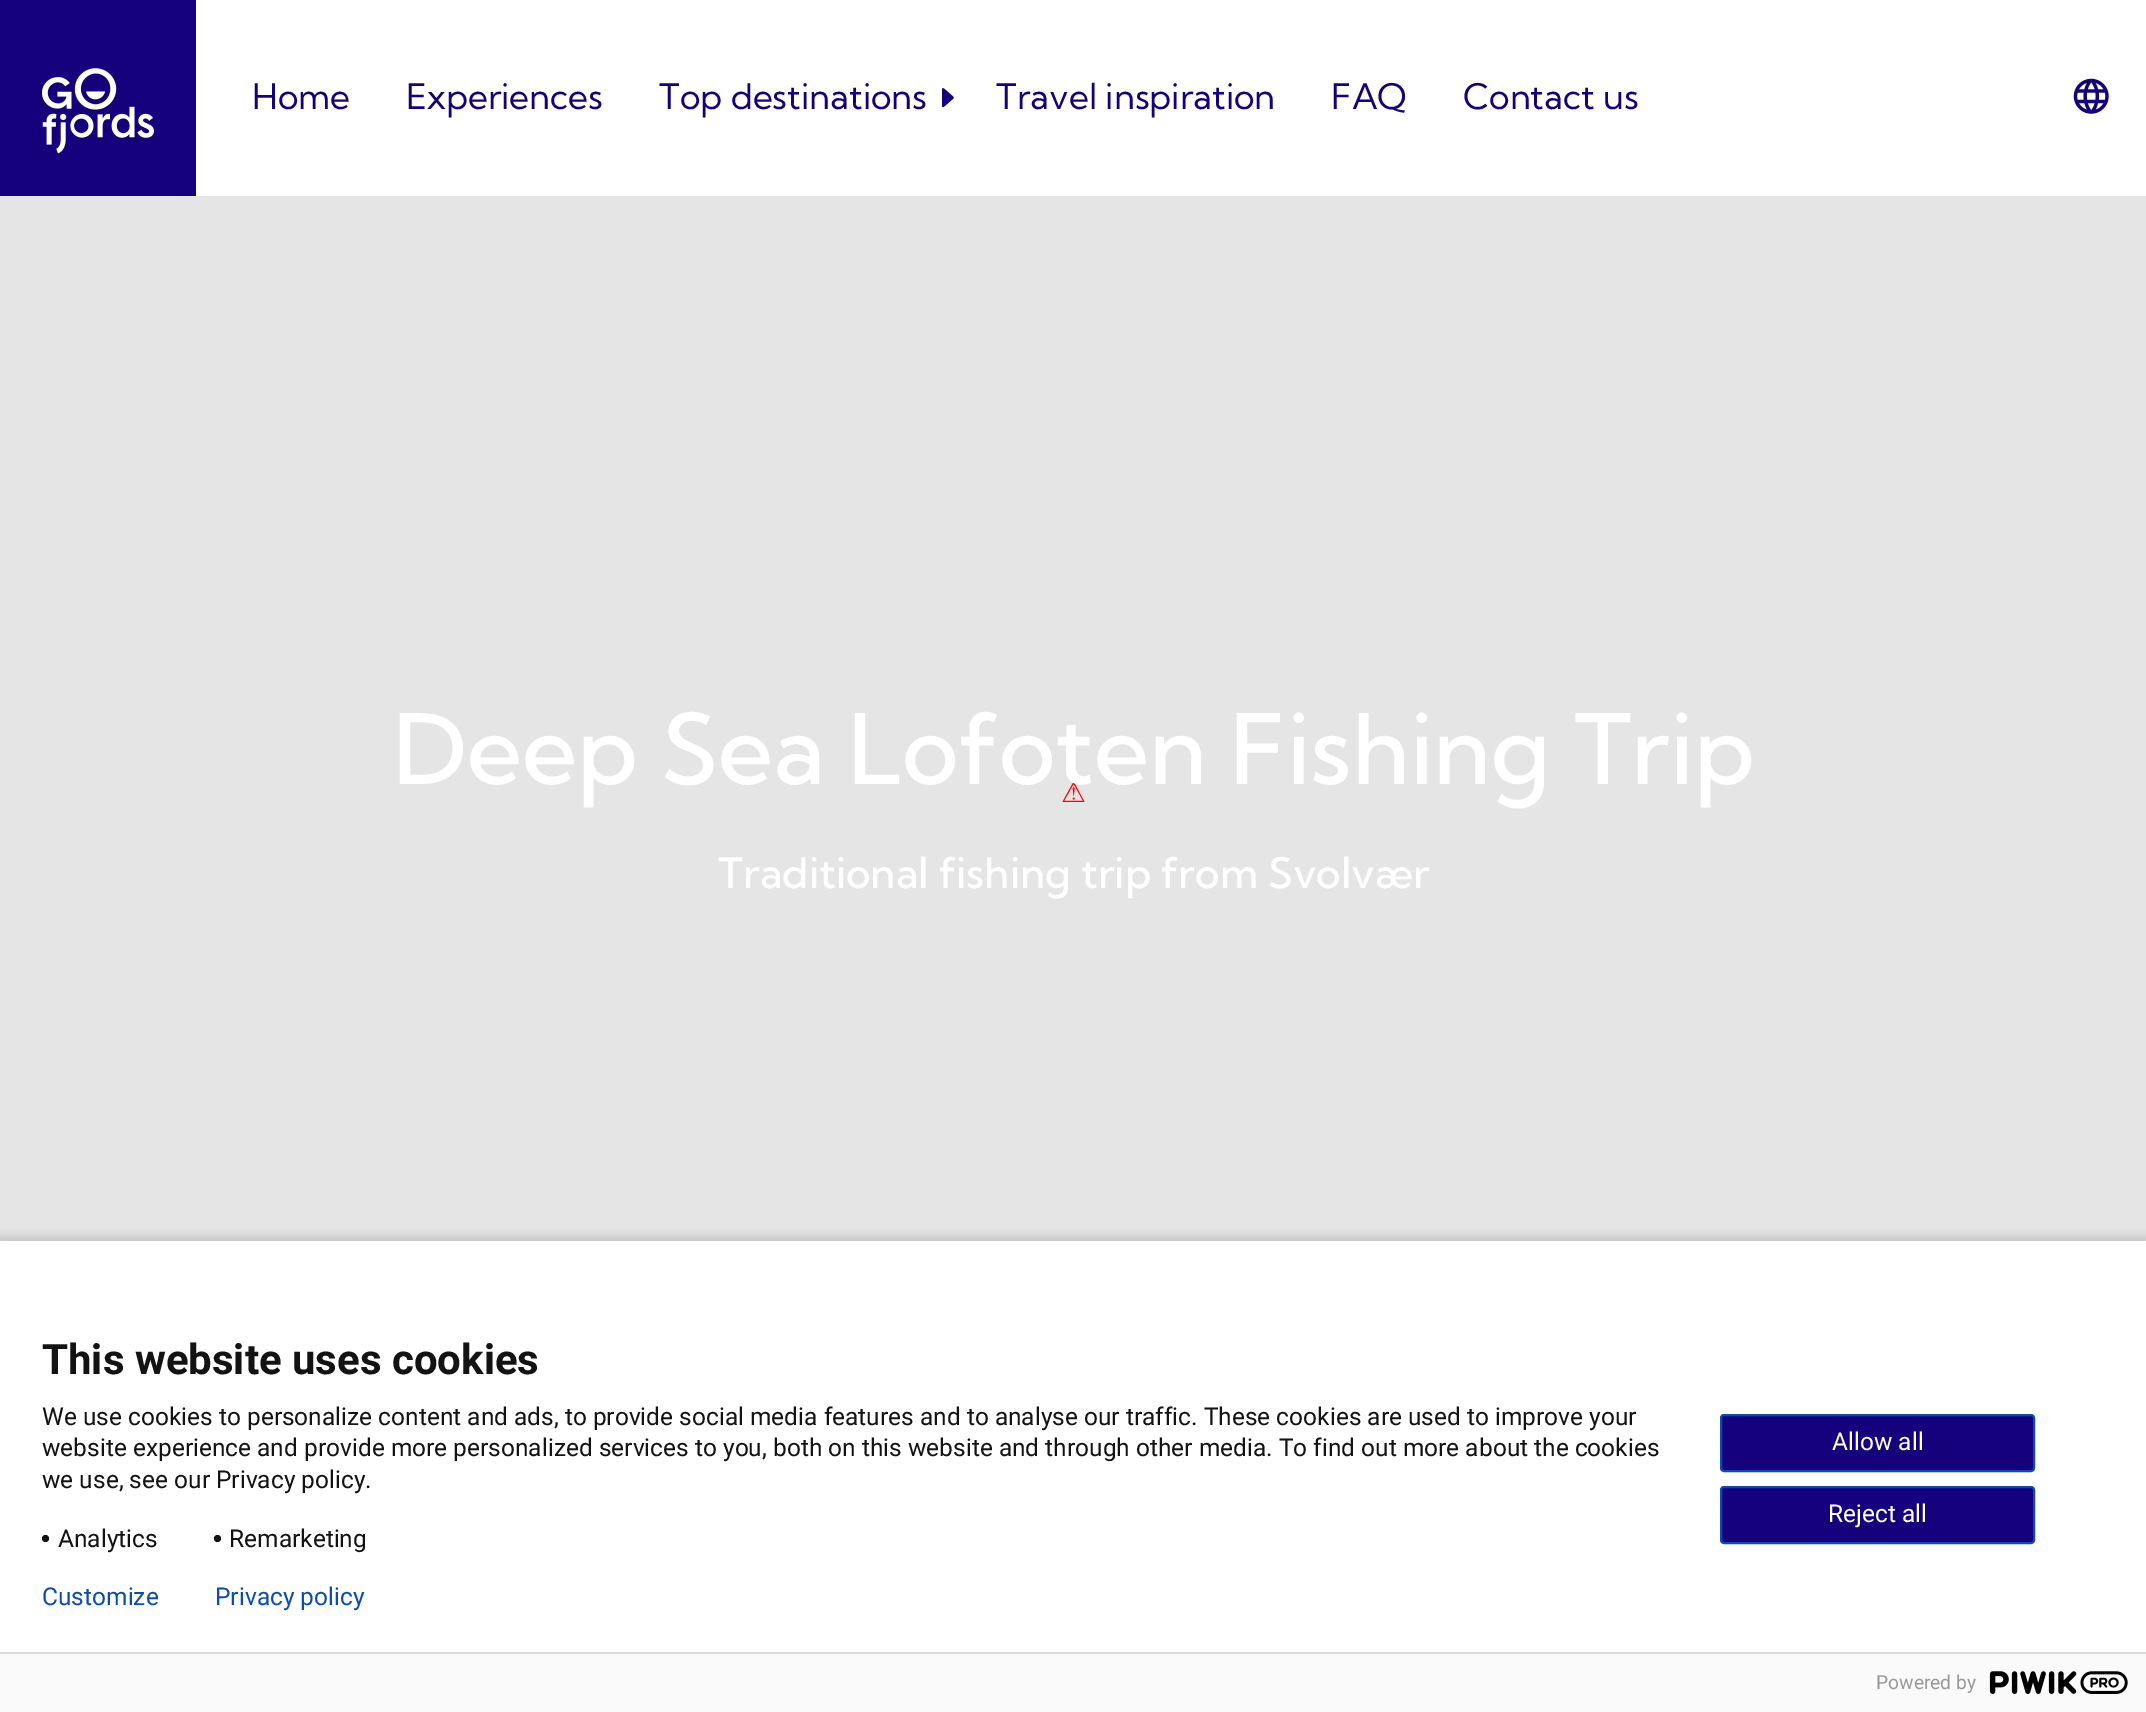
%!PS
<< /PageSize [2146 1712] /PageUsesTransparency true >> setpagedevice
/rgb { 3 { 255 div 3 1 roll } repeat setrgbcolor } def
/font { [ exch dup neg 0 0 3 -1 roll 0 0 ] selectfont } def
/alpha { dup .setfillconstantalpha .setstrokeconstantalpha } def
/circle { newpath 0 360 arc closepath } def
/roundrect { 5 dict begin { /r /h /w /y /x } { exch def } forall
  x r add y moveto x w add y 2 copy h add r arct x w add y h add x 1 index r arct
  x y h add x y r arct x y 2 copy exch w add exch r arct closepath end } def
/shadow { 12 dict begin { /a /b /q /h /w /y /x } { exch def } forall gsave /was 0 def
  9 -2 -9 { dup b mul 4 div /e exch def 1 sub .425 mul 2.718 exch exp 1 add a .99 .min exch div /now exch def
    1 1 now sub 1 was sub div sub alpha /was now def
    w h .min e 2 mul add 0 gt { x e sub y e sub w e 2 mul add h e 2 mul add
      q e add b .6 mul add w h .min 2 div e add .min 0 .max roundrect fill } if } for grestore end } def
/picture { 5 dict begin { /h /w /y /x /name } { exch def } forall
  gsave x y translate w h scale
  w h 8 [w 0 0 h 0 0] name (r) file false 3 colorimage grestore end } def
0 .pushpdf14devicefilter
0 1712 translate 1 -1 scale
4 setmiterlimit
255 255 255 rgb
0 0 2146 1712 rectfill
21 1 124 rgb
0 0 196 196 rectfill
(img/1.rgb) 42 68 112 86 picture
(img/2.rgb) 942 88 12 20 picture
(img/3.rgb) 2073 78 36 36 picture
(img/4.rgb) 0 196 2146 1045 picture
0 0 0 rgb
-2 1236 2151 476 0 4.5 0.14 shadow
255 255 255 rgb
0 1241 2146 411 rectfill
19 19 19 rgb
45.5 1538.5 3.5 circle fill
217.5 1538.5 3.5 circle fill
21 1 124 rgb
1721 1415 313 56 3 roundrect gsave fill grestore
11 75 179 rgb
2 setlinewidth
stroke
21 1 124 rgb
1721 1487 313 56 3 roundrect gsave fill grestore
11 75 179 rgb
stroke
250 250 250 rgb
0 1654 2146 58 rectfill
221 221 221 rgb
0 1652 2146 2 rectfill
(img/5.rgb) 1989 1671 139 23 picture
/KumbhSans-Regular 35 font
21 1 124 rgb
[
  [(Home) 252 109]
  [(Experiences) 406 109]
  [(Top destinations) 659 109]
  [(Travel inspiration) 996 109]
  [(FAQ) 1331 109]
  [(Contact us) 1463 109]
] { aload pop moveto show } forall
/KumbhSans-Medium 96.8 font
255 255 255 rgb
393 784 moveto (Deep Sea Lofoten Fishing Trip) show
/KumbhSans-Medium 42 font
718 888 moveto (Traditional fishing trip from Svolvær) show
/Roboto-Bold 42 font
19 19 19 rgb
42 1374 moveto (This website uses cookies) show
/Roboto-Regular 24.5 font
[
  [(We use cookies to personalize content and ads, to provide social media features and to analyse our traffic. These cookies are used to improve your) 42 1425]
  [(website experience and provide more personalized services to you, both on this website and through other media. To find out more about the cookies) 42 1456]
  [(we use, see our Privacy policy.) 42 1488]
  [(Analytics) 58 1547]
  [(Remarketing) 229 1547]
] { aload pop moveto show } forall
255 255 255 rgb
1832 1450 moveto (Allow all) show
1828 1522 moveto (Reject all) show
11 75 179 rgb
42 1605 moveto (Customize) show
215 1605 moveto (Privacy policy) show
/Roboto-Regular 19.25 font
153 153 153 rgb
1876 1689 moveto (Powered by) show
.poppdf14devicefilter showpage
